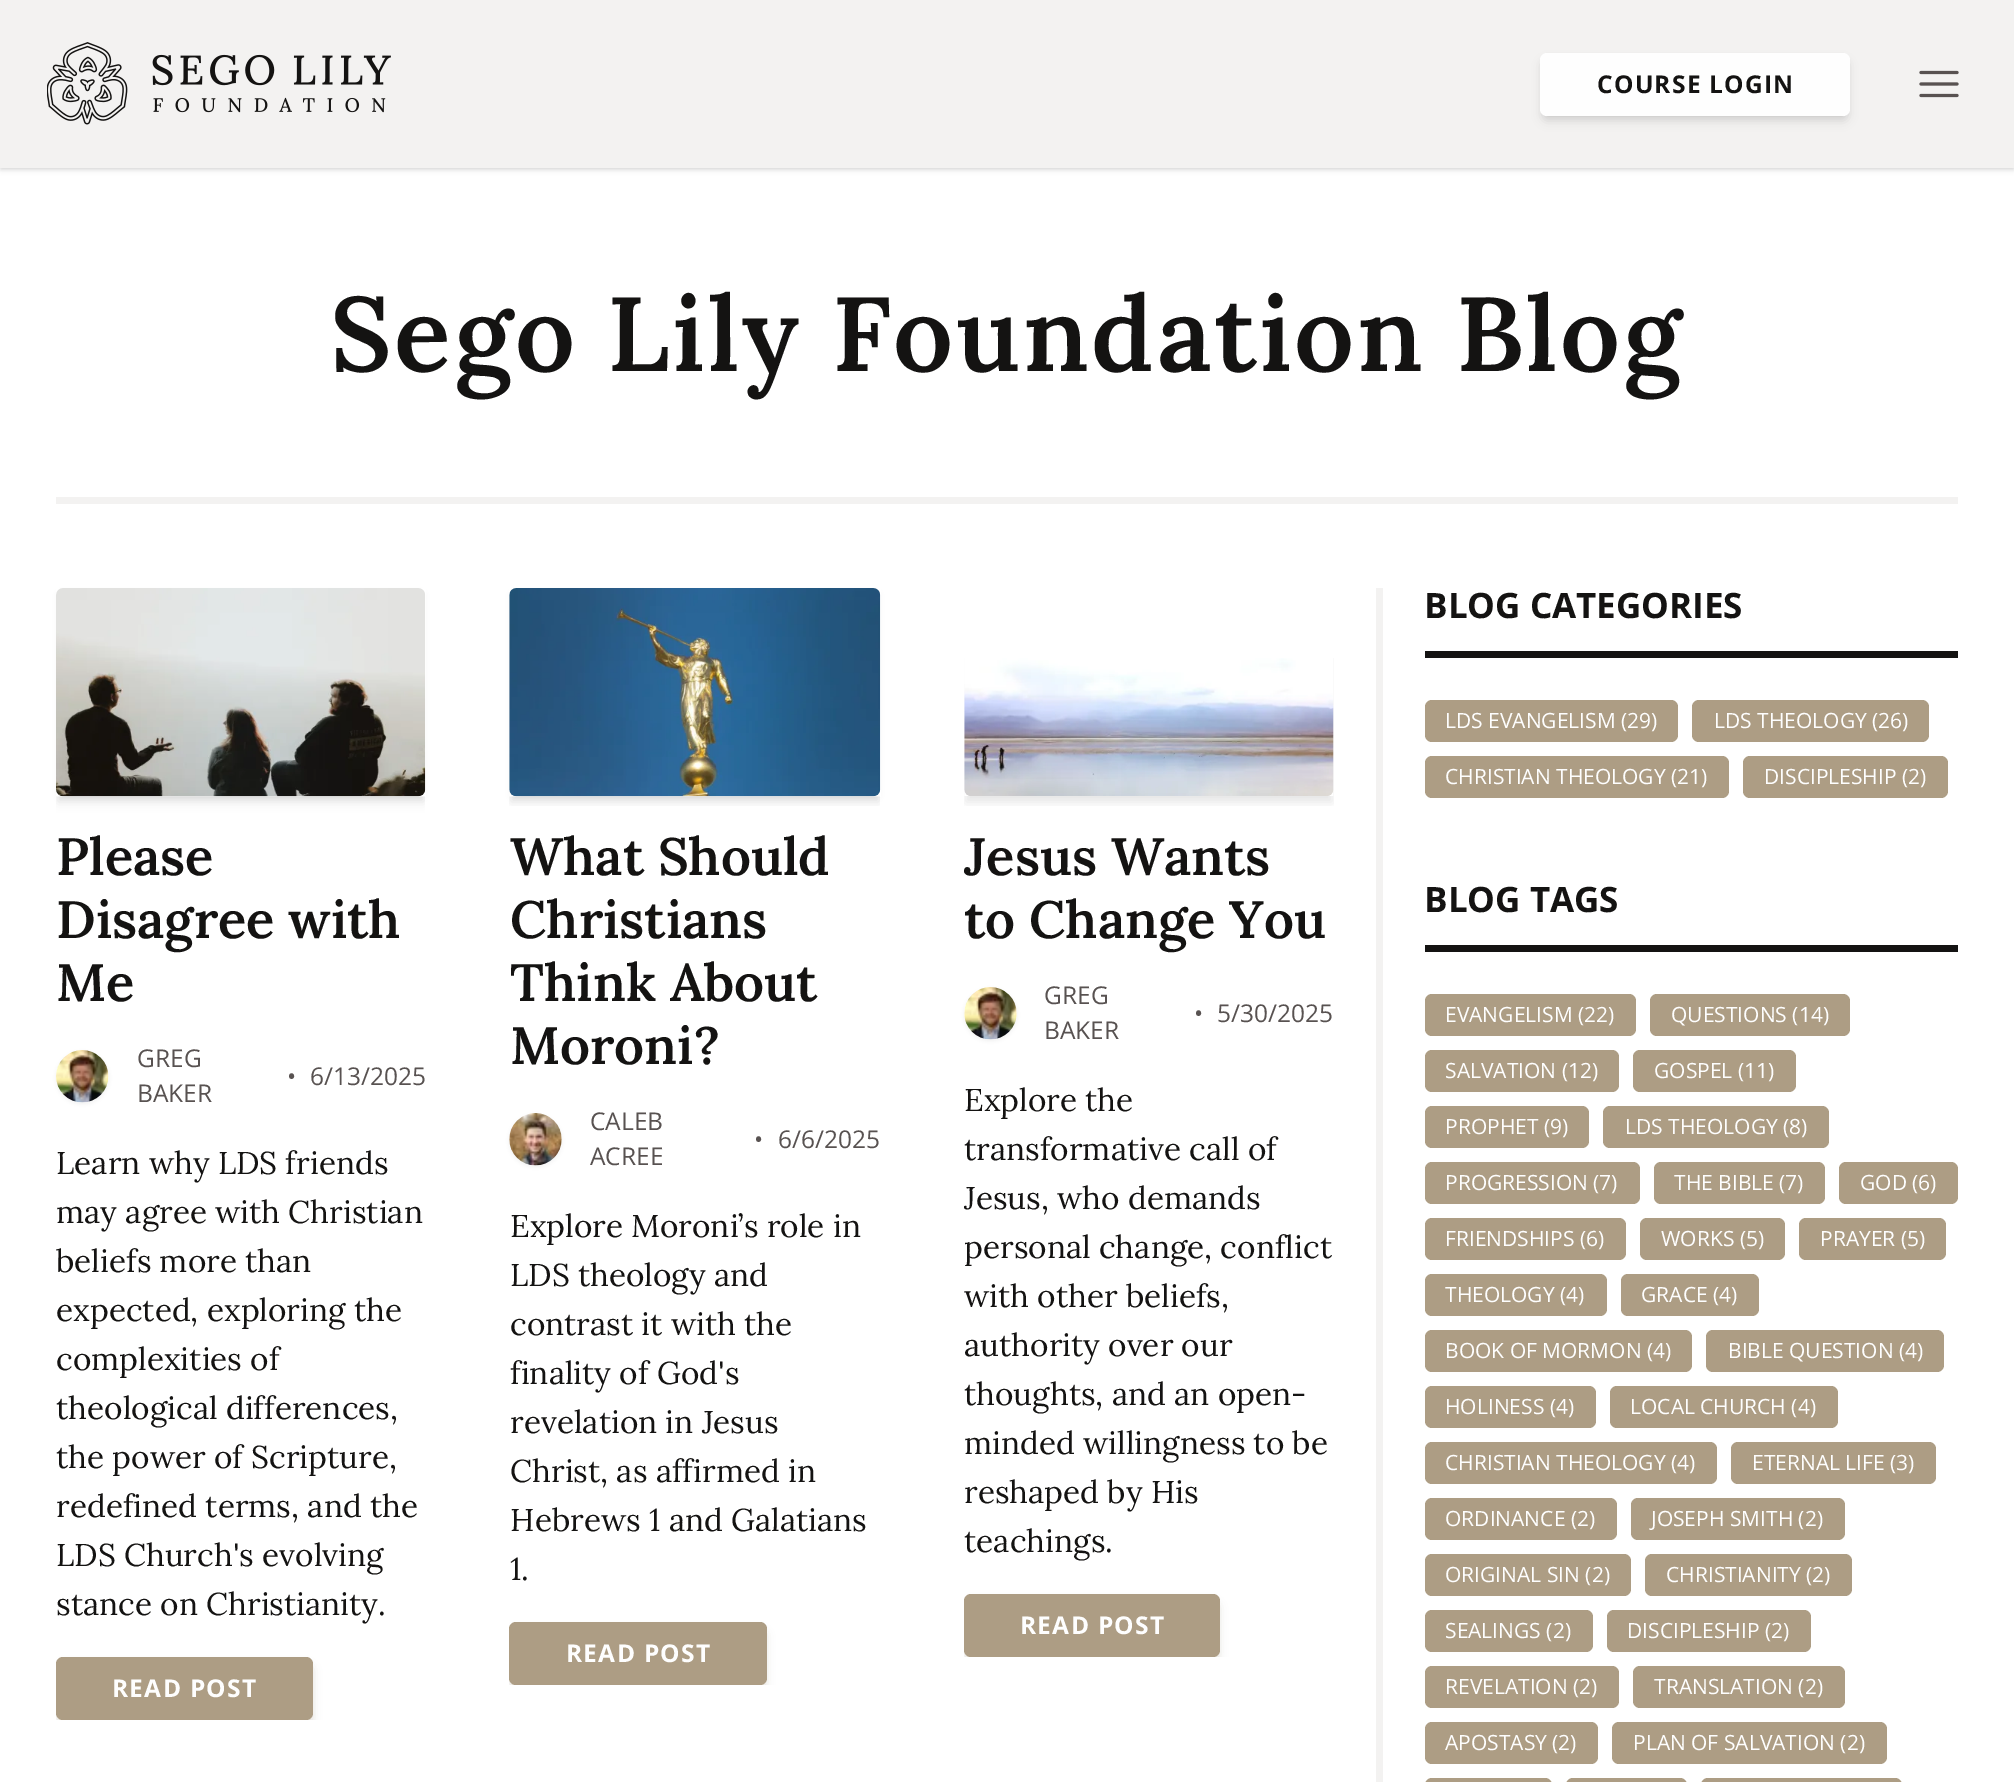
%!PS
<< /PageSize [2014 1782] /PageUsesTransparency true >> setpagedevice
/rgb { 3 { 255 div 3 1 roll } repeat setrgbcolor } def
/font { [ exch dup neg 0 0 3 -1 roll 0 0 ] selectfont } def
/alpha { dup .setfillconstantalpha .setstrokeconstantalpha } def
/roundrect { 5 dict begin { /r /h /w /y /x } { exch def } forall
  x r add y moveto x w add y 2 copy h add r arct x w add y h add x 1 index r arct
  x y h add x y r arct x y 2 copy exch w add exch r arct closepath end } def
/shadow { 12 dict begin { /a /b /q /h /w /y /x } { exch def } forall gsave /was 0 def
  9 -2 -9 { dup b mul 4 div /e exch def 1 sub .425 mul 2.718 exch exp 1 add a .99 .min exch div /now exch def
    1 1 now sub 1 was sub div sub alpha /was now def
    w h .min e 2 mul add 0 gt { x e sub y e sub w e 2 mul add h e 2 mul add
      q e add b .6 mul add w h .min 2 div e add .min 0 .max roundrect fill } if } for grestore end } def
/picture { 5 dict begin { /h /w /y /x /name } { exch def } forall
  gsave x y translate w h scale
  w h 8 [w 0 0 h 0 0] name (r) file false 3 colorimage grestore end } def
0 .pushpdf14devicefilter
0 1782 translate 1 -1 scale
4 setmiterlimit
255 255 255 rgb
0 0 2014 1782 rectfill
0 0 0 rgb
2 4 2011 164 0 2 0.1 shadow
0 2 2014 168 0 2.5 0.1 shadow
243 242 241 rgb
0 0 2014 168 rectfill
(img/1.rgb) 47 42 344 83 picture
0 0 0 rgb
1544 60 302 56 4 3.5 0.1 shadow
1542 61 306 60 5 5 0.1 shadow
254 254 254 rgb
1540 53 310 63 7 roundrect fill
(img/2.rgb) 1919 70 40 28 picture
243 242 241 rgb
56 497 1902 7 rectfill
1376 588 7 1194 rectfill
0 0 0 rgb
60 595 362 201 0 3.5 0.1 shadow
gsave
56 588 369 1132 rectclip
58 597 366 205 0 5 0.1 shadow
grestore
(img/3.rgb) 56 588 370 209 picture
56 1052 53 52 26 2 0.05 shadow
(img/4.rgb) 56 1050 53 53 picture
gsave
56 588 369 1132 rectclip
173 157 132 rgb
60 1664 250 56 4 3.5 0.3 shadow
58 1666 254 60 5 5 0.3 shadow
grestore
173 157 132 rgb
56 1657 257 63 7 roundrect fill
0 0 0 rgb
513 595 364 201 0 3.5 0.1 shadow
gsave
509 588 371 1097 rectclip
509 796 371 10 rectclip
511 597 368 205 0 5 0.1 shadow
grestore
(img/5.rgb) 509 588 372 209 picture
509 1115 53 52 26 2 0.05 shadow
(img/6.rgb) 509 1113 53 53 picture
gsave
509 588 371 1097 rectclip
173 157 132 rgb
513 1629 250 56 4 3.5 0.3 shadow
511 1631 254 60 5 5 0.3 shadow
grestore
173 157 132 rgb
509 1622 258 63 7 roundrect fill
gsave
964 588 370 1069 rectclip
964 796 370 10 rectclip
0 0 0 rgb
966 597 366 205 0 5 0.1 shadow
grestore
(img/7.rgb) 964 658 370 138 picture
0 0 0 rgb
964 989 53 52 26 2 0.05 shadow
(img/8.rgb) 964 987 53 53 picture
gsave
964 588 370 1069 rectclip
173 157 132 rgb
968 1601 248 56 4 3.5 0.3 shadow
966 1603 252 60 5 5 0.3 shadow
grestore
173 157 132 rgb
964 1594 256 63 7 roundrect fill
20 19 18 rgb
1425 651 533 7 rectfill
173 157 132 rgb
1425 700 253 42 7 roundrect fill
1692 700 237 42 7 roundrect fill
1425 756 304 42 7 roundrect fill
1743 756 205 42 7 roundrect fill
20 19 18 rgb
1425 945 533 7 rectfill
173 157 132 rgb
1425 994 211 42 7 roundrect fill
1650 994 200 42 7 roundrect fill
1425 1050 194 42 7 roundrect fill
1633 1050 163 42 7 roundrect fill
1425 1106 164 42 7 roundrect fill
1603 1106 226 42 7 roundrect fill
1425 1162 215 42 7 roundrect fill
1654 1162 171 42 7 roundrect fill
1839 1162 119 42 7 roundrect fill
1425 1218 201 42 7 roundrect fill
1640 1218 145 42 7 roundrect fill
1799 1218 147 42 7 roundrect fill
1425 1274 182 42 7 roundrect fill
1621 1274 138 42 7 roundrect fill
1425 1330 267 42 7 roundrect fill
1706 1330 238 42 7 roundrect fill
1425 1386 171 42 7 roundrect fill
1610 1386 228 42 7 roundrect fill
1425 1442 292 42 7 roundrect fill
1731 1442 205 42 7 roundrect fill
1425 1498 192 42 7 roundrect fill
1631 1498 214 42 7 roundrect fill
1425 1554 206 42 7 roundrect fill
1645 1554 207 42 7 roundrect fill
1425 1610 168 42 7 roundrect fill
1607 1610 204 42 7 roundrect fill
1425 1666 194 42 7 roundrect fill
1633 1666 212 42 7 roundrect fill
1425 1722 173 42 7 roundrect fill
1612 1722 275 42 7 roundrect fill
1425 1778 127 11 7 roundrect fill
1566 1778 121 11 7 roundrect fill
1701 1778 201 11 7 roundrect fill
/OpenSans-Bold 24.5 font
20 19 18 rgb
1597 93 moveto 1.25 0 (COURSE LOGIN) ashow
/Lora-SemiBold 105 font
330 371 moveto 2.6 0 (Sego Lily Foundation Blog) ashow
/Lora-SemiBold 52.5 font
[
  [(Please) 56 875]
  [(Disagree with) 56 938]
  [(Me) 56 1001]
] { aload pop moveto show } forall
/OpenSans-Regular 24.5 font
88 82 81 rgb
[
  [(GREG) 137 1067]
  [(BAKER) 137 1102]
  [(•) 287 1085]
  [(6/13/2025) 310 1085]
] { aload pop moveto show } forall
/Lora-Regular 31.5 font
20 19 18 rgb
[
  [(Learn why LDS friends) 56 1174]
  [(may agree with Christian) 56 1223]
  [(beliefs more than) 56 1272]
  [(expected, exploring the) 56 1321]
  [(complexities of) 56 1370]
  [(theological differences,) 56 1419]
  [(the power of Scripture,) 56 1468]
  [(redefined terms, and the) 56 1517]
  [(LDS Church's evolving) 56 1566]
  [(stance on Christianity.) 56 1615]
] { aload pop moveto show } forall
/OpenSans-Bold 24.5 font
254 254 254 rgb
112 1697 moveto 1.25 0 (READ POST) ashow
/Lora-SemiBold 52.5 font
20 19 18 rgb
[
  [(What Should) 510 875]
  [(Christians) 510 938]
  [(Think About) 510 1001]
  [(Moroni?) 510 1064]
] { aload pop moveto show } forall
/OpenSans-Regular 24.5 font
88 82 81 rgb
[
  [(CALEB) 590 1130]
  [(ACREE) 590 1165]
  [(•) 754 1148]
  [(6/6/2025) 778 1148]
] { aload pop moveto show } forall
/Lora-Regular 31.5 font
20 19 18 rgb
[
  [(Explore Moroni’s role in) 510 1237]
  [(LDS theology and) 510 1286]
  [(contrast it with the) 510 1335]
  [(finality of God's) 510 1384]
  [(revelation in Jesus) 510 1433]
  [(Christ, as affirmed in) 510 1482]
  [(Hebrews 1 and Galatians) 510 1531]
  [(1.) 510 1580]
] { aload pop moveto show } forall
/OpenSans-Bold 24.5 font
254 254 254 rgb
566 1662 moveto 1.25 0 (READ POST) ashow
gsave
964 588 370 1069 rectclip
/Lora-SemiBold 52.5 font
20 19 18 rgb
964 875 moveto (Jesus Wants) show
grestore
/Lora-SemiBold 52.5 font
20 19 18 rgb
964 938 moveto (to Change You) show
/OpenSans-Regular 24.5 font
88 82 81 rgb
[
  [(GREG) 1044 1004]
  [(BAKER) 1044 1039]
  [(•) 1194 1022]
  [(5/30/2025) 1217 1022]
] { aload pop moveto show } forall
/Lora-Regular 31.5 font
20 19 18 rgb
964 1111 moveto (Explore the) show
964 1160 moveto (transformative call of) show
gsave
964 588 370 1069 rectclip
964 1209 moveto (Jesus, who demands) show
grestore
[
  [(personal change, conflict) 964 1258]
  [(with other beliefs,) 964 1307]
  [(authority over our) 964 1356]
  [(thoughts, and an open-) 964 1405]
  [(minded willingness to be) 964 1454]
  [(reshaped by His) 964 1503]
  [(teachings.) 964 1552]
] { aload pop moveto show } forall
/OpenSans-Bold 24.5 font
254 254 254 rgb
1020 1634 moveto 1.25 0 (READ POST) ashow
/OpenSans-Bold 35 font
20 19 18 rgb
1424 618 moveto (BLOG CATEGORIES) show
/OpenSans-Regular 21 font
254 254 254 rgb
[
  [(LDS EVANGELISM \(29\)) 1445 728]
  [(LDS THEOLOGY \(26\)) 1714 728]
  [(CHRISTIAN THEOLOGY \(21\)) 1445 784]
  [(DISCIPLESHIP \(2\)) 1764 784]
] { aload pop moveto show } forall
/OpenSans-Bold 35 font
20 19 18 rgb
1424 912 moveto (BLOG TAGS) show
/OpenSans-Regular 21 font
254 254 254 rgb
[
  [(EVANGELISM \(22\)) 1445 1022]
  [(QUESTIONS \(14\)) 1671 1022]
  [(SALVATION \(12\)) 1445 1078]
  [(GOSPEL \(11\)) 1654 1078]
  [(PROPHET \(9\)) 1445 1134]
  [(LDS THEOLOGY \(8\)) 1625 1134]
  [(PROGRESSION \(7\)) 1445 1190]
  [(THE BIBLE \(7\)) 1674 1190]
  [(GOD \(6\)) 1860 1190]
  [(FRIENDSHIPS \(6\)) 1445 1246]
  [(WORKS \(5\)) 1661 1246]
  [(PRAYER \(5\)) 1820 1246]
  [(THEOLOGY \(4\)) 1445 1302]
  [(GRACE \(4\)) 1641 1302]
  [(BOOK OF MORMON \(4\)) 1445 1358]
  [(BIBLE QUESTION \(4\)) 1728 1358]
  [(HOLINESS \(4\)) 1445 1414]
  [(LOCAL CHURCH \(4\)) 1630 1414]
  [(CHRISTIAN THEOLOGY \(4\)) 1445 1470]
  [(ETERNAL LIFE \(3\)) 1752 1470]
  [(ORDINANCE \(2\)) 1445 1526]
  [(JOSEPH SMITH \(2\)) 1651 1526]
  [(ORIGINAL SIN \(2\)) 1445 1582]
  [(CHRISTIANITY \(2\)) 1666 1582]
  [(SEALINGS \(2\)) 1445 1638]
  [(DISCIPLESHIP \(2\)) 1627 1638]
  [(REVELATION \(2\)) 1445 1694]
  [(TRANSLATION \(2\)) 1654 1694]
  [(APOSTASY \(2\)) 1445 1750]
  [(PLAN OF SALVATION \(2\)) 1633 1750]
] { aload pop moveto show } forall
.poppdf14devicefilter showpage
